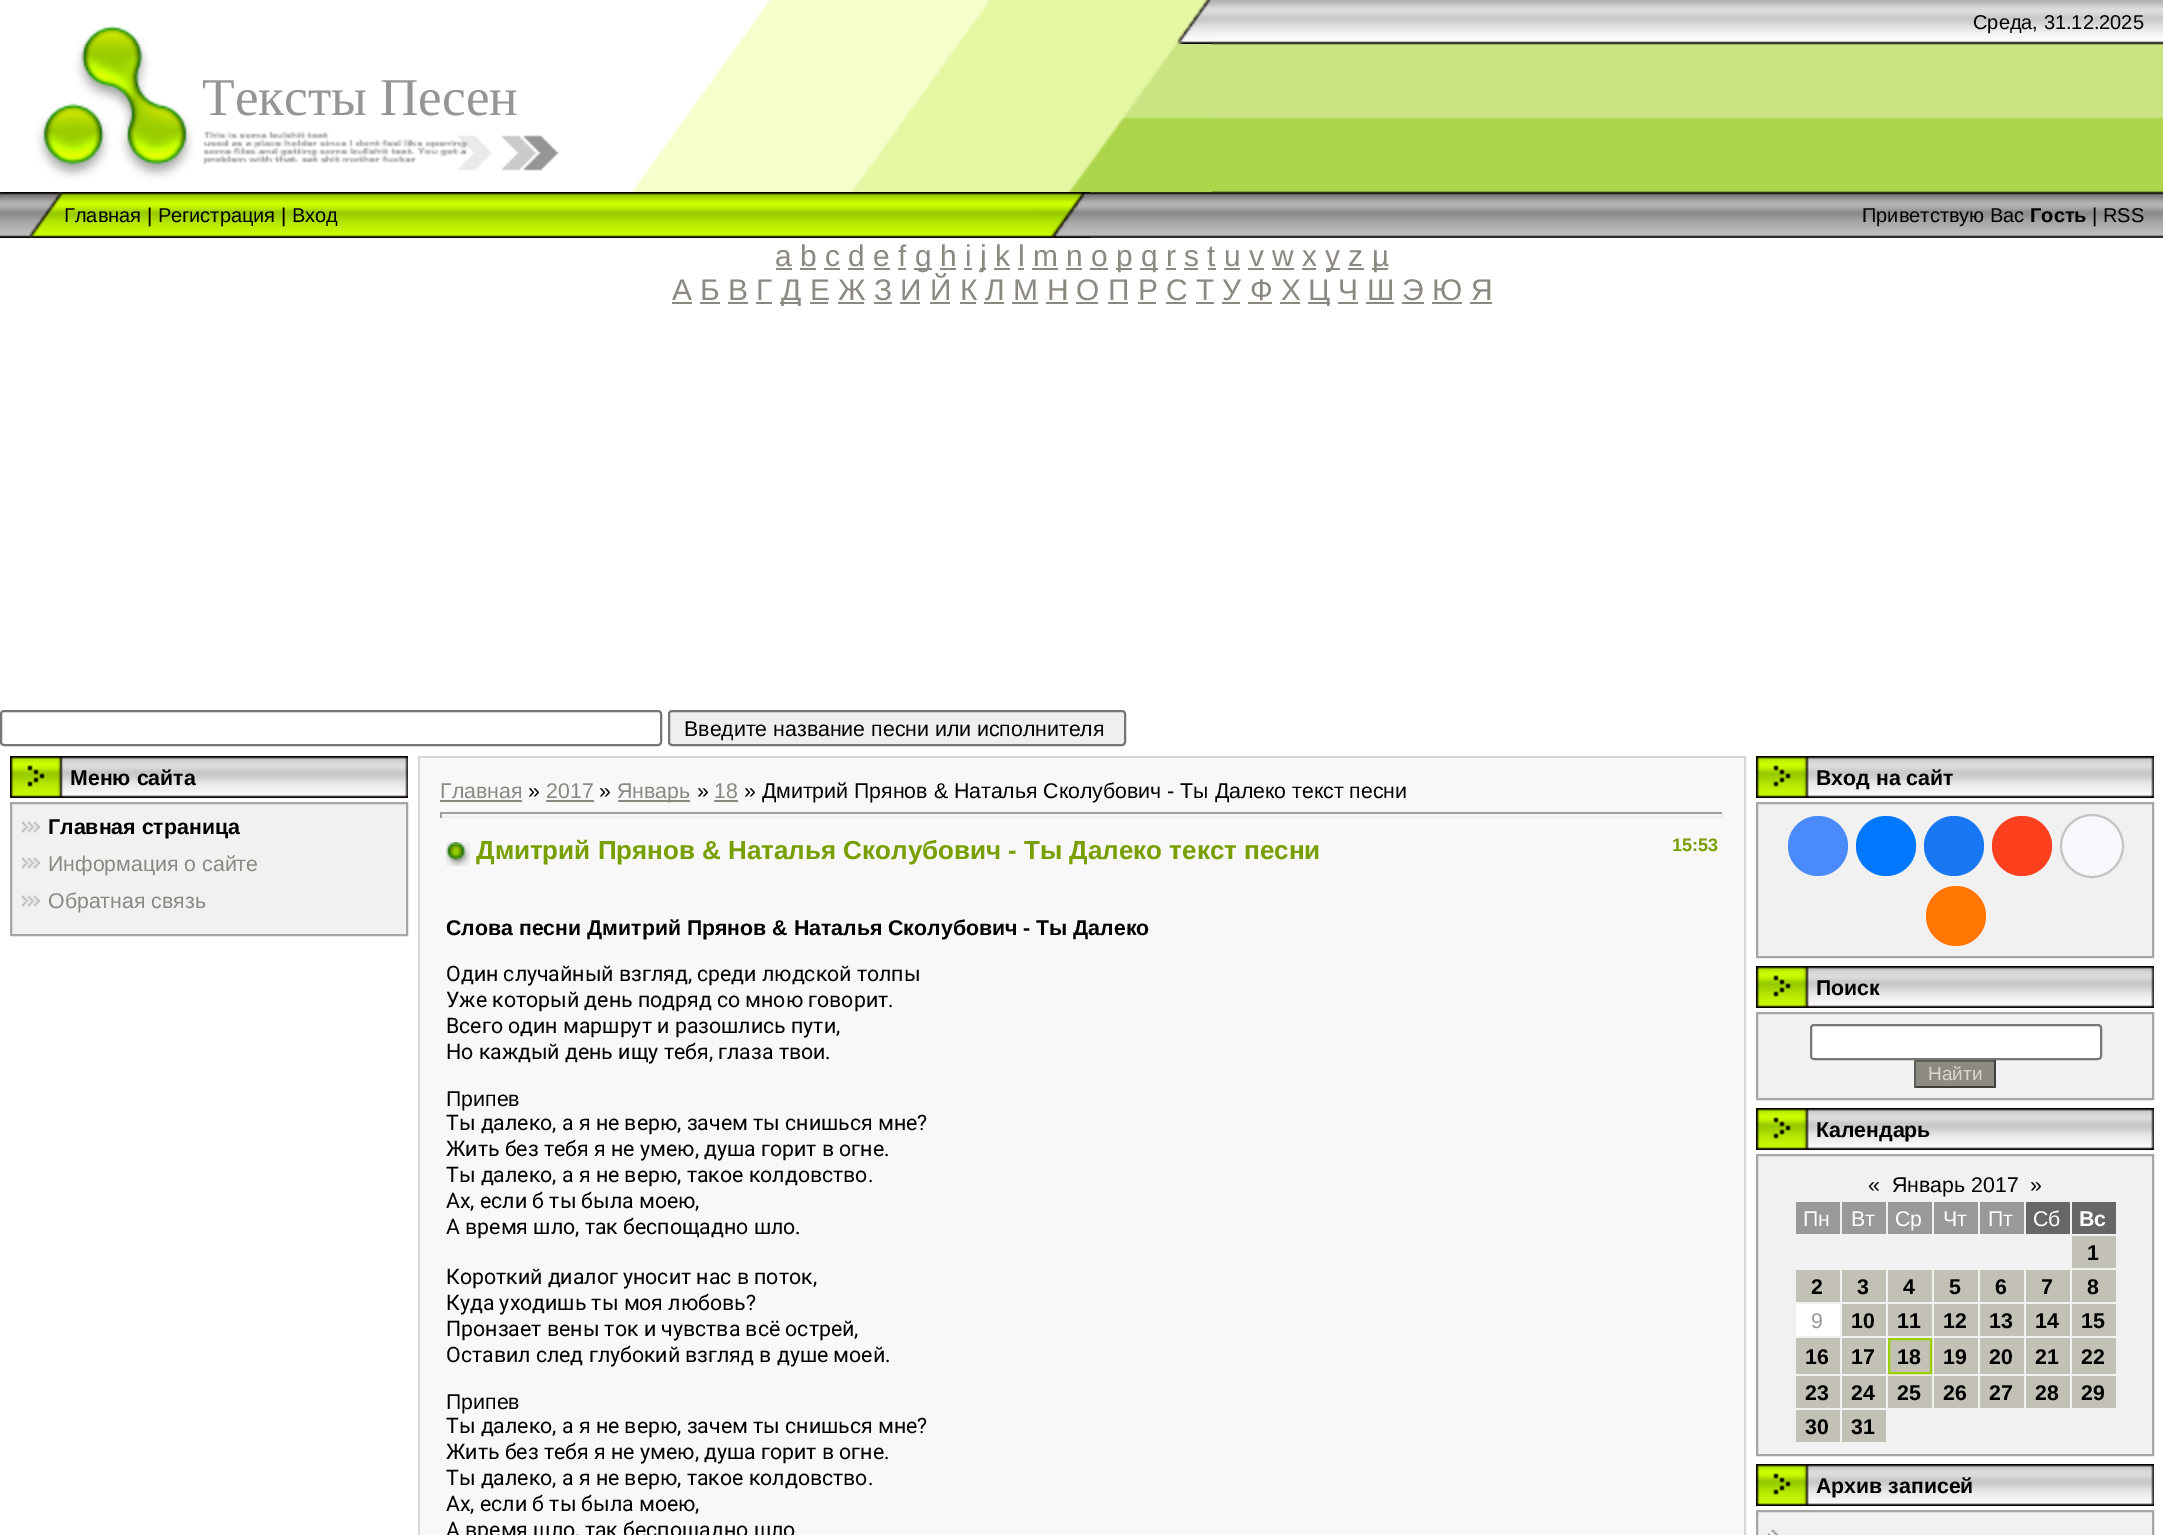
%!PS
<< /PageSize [2163 1535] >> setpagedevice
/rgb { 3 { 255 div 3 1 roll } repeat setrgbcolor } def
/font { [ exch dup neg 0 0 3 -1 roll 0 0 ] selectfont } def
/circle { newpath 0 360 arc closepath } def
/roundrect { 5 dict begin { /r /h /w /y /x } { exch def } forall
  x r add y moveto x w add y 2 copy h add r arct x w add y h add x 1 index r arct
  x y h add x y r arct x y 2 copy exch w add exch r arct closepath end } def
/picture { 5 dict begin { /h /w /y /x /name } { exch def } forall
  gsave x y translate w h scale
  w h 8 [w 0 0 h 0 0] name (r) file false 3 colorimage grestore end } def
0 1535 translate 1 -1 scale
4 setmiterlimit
255 255 255 rgb
0 0 2163 1535 rectfill
(img/1.rgb) 1090 0 1073 238 picture
(img/2.rgb) 0 0 202 44 picture
(img/3.rgb) 202 0 1010 44 picture
(img/4.rgb) 0 44 202 148 picture
(img/5.rgb) 202 44 1010 148 picture
(img/6.rgb) 0 192 64 46 picture
(img/7.rgb) 64 192 972 46 picture
(img/8.rgb) 1036 192 54 46 picture
[
  [776 268 16 2 139 136 129]
  [914 268 18 2 139 136 129]
  [980 268 6 2 139 136 129]
  [1116 268 16 2 139 136 129]
  [1140 268 18 2 139 136 129]
  [1326 268 14 2 139 136 129]
  [1372 268 16 2 139 136 129]
  [800 268 16 2 139 136 129]
  [824 268 16 2 139 136 129]
  [848 268 16 2 139 136 129]
  [874 268 16 2 139 136 129]
  [898 268 8 2 139 136 129]
  [940 268 16 2 139 136 129]
  [964 268 8 2 139 136 129]
  [994 268 16 2 139 136 129]
  [1018 268 6 2 139 136 129]
  [1032 268 26 2 139 136 129]
  [1066 268 16 2 139 136 129]
  [1090 268 18 2 139 136 129]
  [1166 268 10 2 139 136 129]
  [1184 268 14 2 139 136 129]
  [1208 268 8 2 139 136 129]
  [1224 268 16 2 139 136 129]
  [1248 268 16 2 139 136 129]
  [1272 268 22 2 139 136 129]
  [1302 268 14 2 139 136 129]
  [1348 268 16 2 139 136 129]
  [672 302 20 2 139 136 129]
  [780 302 20 2 139 136 129]
  [1308 302 22 2 139 136 129]
  [700 302 20 2 139 136 129]
  [728 302 20 2 139 136 129]
  [756 302 16 2 139 136 129]
  [810 302 18 2 139 136 129]
  [838 302 26 2 139 136 129]
  [874 302 18 2 139 136 129]
  [900 302 20 2 139 136 129]
  [930 302 20 2 139 136 129]
  [960 302 16 2 139 136 129]
  [984 302 20 2 139 136 129]
  [1012 302 26 2 139 136 129]
  [1046 302 22 2 139 136 129]
  [1076 302 22 2 139 136 129]
  [1108 302 20 2 139 136 129]
  [1138 302 18 2 139 136 129]
  [1166 302 20 2 139 136 129]
  [1196 302 18 2 139 136 129]
  [1222 302 18 2 139 136 129]
  [1248 302 24 2 139 136 129]
  [1280 302 20 2 139 136 129]
  [1338 302 20 2 139 136 129]
  [1366 302 28 2 139 136 129]
  [1402 302 22 2 139 136 129]
  [1432 302 30 2 139 136 129]
  [1470 302 22 2 139 136 129]
] { aload pop rgb rectfill } forall
118 118 118 rgb
2 setlinewidth
1 711 660 34 3 roundrect stroke
239 239 239 rgb
669 711 456 34 3 roundrect gsave fill grestore
118 118 118 rgb
stroke
(img/9.rgb) 10 756 398 42 picture
241 241 241 rgb
11 803 moveto 407 803 lineto 407 935 lineto 11 935 lineto closepath gsave fill grestore
167 166 166 rgb
stroke
(img/10.rgb) 22 821 18 12 picture
(img/10.rgb) 22 857 18 12 picture
(img/10.rgb) 22 895 18 12 picture
215 215 215 rgb
419 757 1326 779 rectstroke
[
  [420 758 1324 777 248 248 248]
  [440 800 82 2 139 136 129]
  [546 800 48 2 139 136 129]
  [618 800 72 2 139 136 129]
  [714 800 24 2 139 136 129]
  [440 812 1284 2 159 159 159]
  [1722 812 2 6 238 238 238]
  [440 816 1284 2 238 238 238]
  [440 812 2 6 159 159 159]
] { aload pop rgb rectfill } forall
(img/11.rgb) 446 842 24 24 picture
(img/9.rgb) 1756 756 398 42 picture
241 241 241 rgb
1757 803 moveto 2153 803 lineto 2153 957 lineto 1757 957 lineto closepath gsave fill grestore
167 166 166 rgb
stroke
73 139 250 rgb
1818 846 30 circle fill
0 119 255 rgb
1886 846 30 circle fill
24 119 242 rgb
1954 846 30 circle fill
252 63 29 rgb
2022 846 30 circle fill
248 248 252 rgb
2092 846 31 circle gsave fill grestore
196 196 196 rgb
stroke
255 119 0 rgb
1956 916 30 circle fill
(img/9.rgb) 1756 966 398 42 picture
241 241 241 rgb
1757 1013 moveto 2153 1013 lineto 2153 1099 lineto 1757 1099 lineto closepath gsave fill grestore
167 166 166 rgb
stroke
255 255 255 rgb
1811 1025 290 34 3 roundrect gsave fill grestore
118 118 118 rgb
stroke
[
  [1916 1062 78 24 141 138 131]
  [1914 1060 82 2 97 94 88]
  [1994 1060 2 28 65 63 59]
  [1914 1086 82 2 65 63 59]
  [1914 1060 2 28 97 94 88]
] { aload pop rgb rectfill } forall
(img/9.rgb) 1756 1108 398 42 picture
241 241 241 rgb
1757 1155 moveto 2153 1155 lineto 2153 1455 lineto 1757 1455 lineto closepath gsave fill grestore
167 166 166 rgb
stroke
[
  [1796 1202 44 32 153 153 153]
  [1842 1202 44 32 153 153 153]
  [1888 1202 44 32 153 153 153]
  [1934 1202 44 32 153 153 153]
  [1980 1202 44 32 153 153 153]
  [2026 1202 44 32 102 102 102]
  [2072 1202 44 32 102 102 102]
  [2072 1236 44 32 195 192 181]
  [1796 1270 44 32 195 192 181]
  [1842 1270 44 32 195 192 181]
  [1888 1270 44 32 195 192 181]
  [1934 1270 44 32 195 192 181]
  [1980 1270 44 32 195 192 181]
  [2026 1270 44 32 195 192 181]
  [2072 1270 44 32 195 192 181]
  [1796 1304 44 32 255 255 255]
  [1842 1304 44 32 195 192 181]
  [1888 1304 44 32 195 192 181]
  [1934 1304 44 32 195 192 181]
  [1980 1304 44 32 195 192 181]
  [2026 1304 44 32 195 192 181]
  [2072 1304 44 32 195 192 181]
  [1796 1338 44 36 195 192 181]
  [1842 1338 44 36 195 192 181]
] { aload pop rgb rectfill } forall
1889 1339 moveto 1931 1339 lineto 1931 1373 lineto 1889 1373 lineto closepath gsave fill grestore
156 207 0 rgb
stroke
[
  [1934 1338 44 36 195 192 181]
  [1980 1338 44 36 195 192 181]
  [2026 1338 44 36 195 192 181]
  [2072 1338 44 36 195 192 181]
  [1796 1376 44 32 195 192 181]
  [1842 1376 44 32 195 192 181]
  [1888 1376 44 32 195 192 181]
  [1934 1376 44 32 195 192 181]
  [1980 1376 44 32 195 192 181]
  [2026 1376 44 32 195 192 181]
  [2072 1376 44 32 195 192 181]
  [1796 1410 44 32 195 192 181]
  [1842 1410 44 32 195 192 181]
] { aload pop rgb rectfill } forall
(img/9.rgb) 1756 1464 398 42 picture
241 241 241 rgb
1757 1511 moveto 2153 1511 lineto 2153 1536 lineto 1757 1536 lineto closepath gsave fill grestore
167 166 166 rgb
stroke
(img/12.rgb) 1768 1530 10 5 picture
/LiberationSans-Regular 20 font
0 0 0 rgb
1973 29 moveto (Среда, 31.12.2025) show
/LiberationSerif-Regular 53.25 font
150 149 149 rgb
202 115 moveto (Тексты Песен) show
/LiberationSans-Regular 20 font
0 0 0 rgb
64 222 moveto (Главная | Регистрация | Вход) show
1862 222 moveto (Приветствую Вас) show
/LiberationSans-Bold 20 font
2030 222 moveto (Гость) show
/LiberationSans-Regular 20 font
2092 222 moveto (| RSS) show
/LiberationSans-Regular 29.9 font
139 136 129 rgb
[
  [(a b c d e f) 775 266]
  [(g h i) 915 266]
  [(j k l m n o) 980 266]
  [(p) 1116 266]
  [(q r s t u v w x) 1141 266]
  [(y z) 1325 266]
  [(µ) 1372 266]
  [(А Б В Г) 672 300]
  [(Д Е Ж З И Й К Л М Н О П Р С Т У Ф Х) 781 300]
  [(Ц Ч Ш Э Ю Я) 1308 300]
] { aload pop moveto show } forall
/LiberationSans-Regular 21.3 font
0 0 0 rgb
684 736 moveto (Введите название песни или исполнителя) show
/LiberationSans-Bold 21.3 font
70 785 moveto (Меню сайта) show
48 834 moveto (Главная страница) show
/LiberationSans-Regular 21.3 font
139 136 129 rgb
[
  [(Информация о сайте) 48 871]
  [(Обратная связь) 48 908]
  [(Главная) 440 798]
] { aload pop moveto show } forall
0 0 0 rgb
528 798 moveto (») show
139 136 129 rgb
546 798 moveto (2017) show
0 0 0 rgb
599 798 moveto (») show
139 136 129 rgb
617 798 moveto (Январь) show
0 0 0 rgb
697 798 moveto (») show
139 136 129 rgb
714 798 moveto (18) show
0 0 0 rgb
744 798 moveto (» Дмитрий Прянов & Наталья Сколубович - Ты Далеко текст песни) show
/LiberationSans-Bold 26 font
119 159 0 rgb
476 859 moveto (Дмитрий Прянов & Наталья Сколубович - Ты Далеко текст песни) show
/LiberationSans-Bold 18 font
1672 851 moveto (15:53) show
/LiberationSans-Bold 21.3 font
0 0 0 rgb
446 935 moveto (Слова песни Дмитрий Прянов & Наталья Сколубович - Ты Далеко) show
/Roboto-Regular 21.3 font
[
  [(Один случайный взгляд, среди людской толпы) 446 981]
  [(Уже который день подряд со мною говорит.) 446 1007]
  [(Всего один маршрут и разошлись пути,) 446 1033]
  [(Но каждый день ищу тебя, глаза твои.) 446 1059]
] { aload pop moveto show } forall
/LiberationSans-Regular 21.3 font
446 1106 moveto (Припев) show
/Roboto-Regular 21.3 font
[
  [(Ты далеко, а я не верю, зачем ты снишься мне?) 446 1130]
  [(Жить без тебя я не умею, душа горит в огне.) 446 1156]
  [(Ты далеко, а я не верю, такое колдовство.) 446 1182]
  [(Ах, если б ты была моею,) 446 1208]
  [(А время шло, так беспощадно шло.) 446 1234]
  [(Короткий диалог уносит нас в поток,) 446 1284]
  [(Куда уходишь ты моя любовь?) 446 1310]
  [(Пронзает вены ток и чувства всё острей,) 446 1336]
  [(Оставил след глубокий взгляд в душе моей.) 446 1362]
] { aload pop moveto show } forall
/LiberationSans-Regular 21.3 font
446 1409 moveto (Припев) show
/Roboto-Regular 21.3 font
[
  [(Ты далеко, а я не верю, зачем ты снишься мне?) 446 1433]
  [(Жить без тебя я не умею, душа горит в огне.) 446 1459]
  [(Ты далеко, а я не верю, такое колдовство.) 446 1485]
  [(Ах, если б ты была моею,) 446 1511]
  [(А время шло, так беспощадно шло) 446 1537]
] { aload pop moveto show } forall
/LiberationSans-Bold 21.3 font
1816 785 moveto (Вход на сайт) show
1816 995 moveto (Поиск) show
/LiberationSans-Regular 19 font
218 215 204 rgb
1928 1080 moveto (Найти) show
/LiberationSans-Bold 21.3 font
0 0 0 rgb
1816 1137 moveto (Календарь) show
/LiberationSans-Regular 21.3 font
[
  [(«) 1868 1192]
  [(Январь 2017) 1892 1192]
  [(») 2030 1192]
] { aload pop moveto show } forall
255 255 255 rgb
[
  [(Пн) 1803 1226]
  [(Вт) 1851 1226]
  [(Ср) 1895 1226]
  [(Чт) 1943 1226]
  [(Пт) 1988 1226]
  [(Сб) 2033 1226]
] { aload pop moveto show } forall
/LiberationSans-Bold 21.3 font
2079 1226 moveto (Вс) show
0 0 0 rgb
[
  [(1) 2087 1260]
  [(2) 1811 1294]
  [(3) 1857 1294]
  [(4) 1903 1294]
  [(5) 1949 1294]
  [(6) 1995 1294]
  [(7) 2041 1294]
  [(8) 2087 1294]
] { aload pop moveto show } forall
/LiberationSans-Regular 21.3 font
150 149 149 rgb
1811 1328 moveto (9) show
/LiberationSans-Bold 21.3 font
0 0 0 rgb
[
  [(10) 1851 1328]
  [(11) 1897 1328]
  [(12) 1943 1328]
  [(13) 1989 1328]
  [(14) 2035 1328]
  [(15) 2081 1328]
  [(16) 1805 1364]
  [(17) 1851 1364]
  [(18) 1897 1364]
  [(19) 1943 1364]
  [(20) 1989 1364]
  [(21) 2035 1364]
  [(22) 2081 1364]
  [(23) 1805 1400]
  [(24) 1851 1400]
  [(25) 1897 1400]
  [(26) 1943 1400]
  [(27) 1989 1400]
  [(28) 2035 1400]
  [(29) 2081 1400]
  [(30) 1805 1434]
  [(31) 1851 1434]
  [(Архив записей) 1816 1493]
] { aload pop moveto show } forall
showpage
